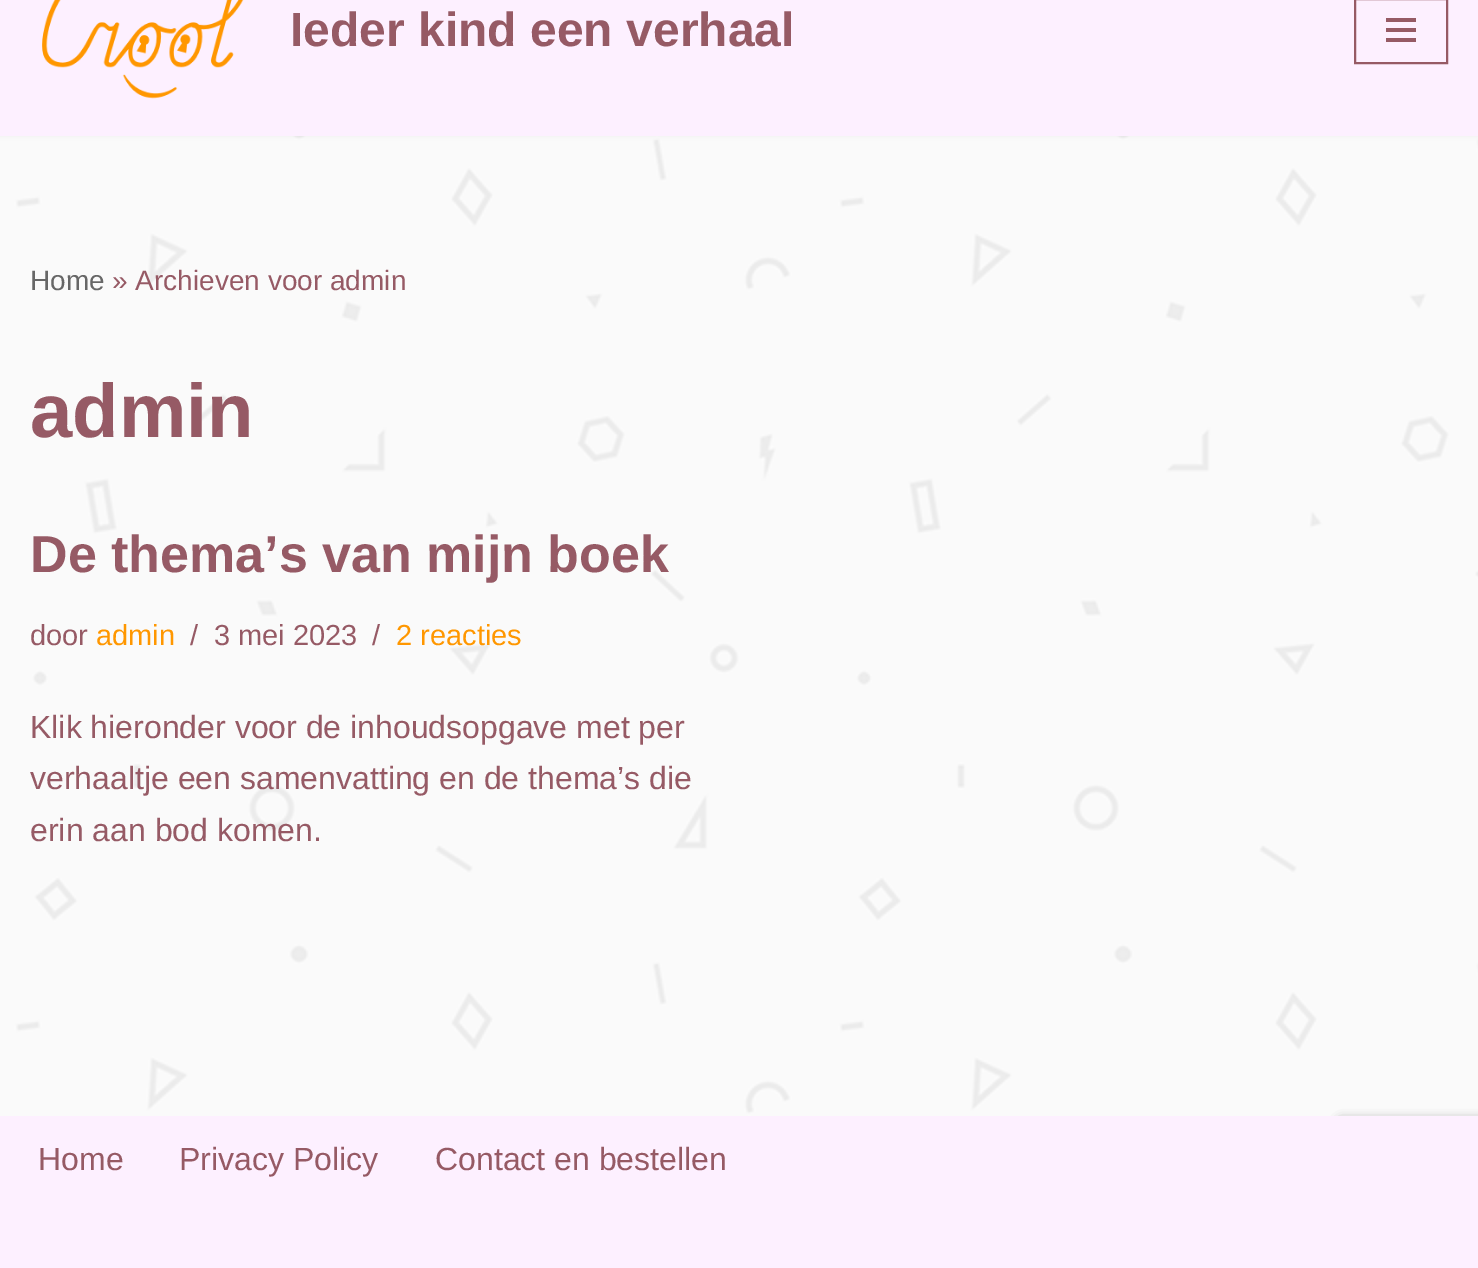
%!PS
<< /PageSize [1478 1268] /PageUsesTransparency true >> setpagedevice
/rgb { 3 { 255 div 3 1 roll } repeat setrgbcolor } def
/font { [ exch dup neg 0 0 3 -1 roll 0 0 ] selectfont } def
/alpha { dup .setfillconstantalpha .setstrokeconstantalpha } def
/roundrect { 5 dict begin { /r /h /w /y /x } { exch def } forall
  x r add y moveto x w add y 2 copy h add r arct x w add y h add x 1 index r arct
  x y h add x y r arct x y 2 copy exch w add exch r arct closepath end } def
/shadow { 12 dict begin { /a /b /q /h /w /y /x } { exch def } forall gsave /was 0 def
  9 -2 -9 { dup b mul 4 div /e exch def 1 sub .425 mul 2.718 exch exp 1 add a .99 .min exch div /now exch def
    1 1 now sub 1 was sub div sub alpha /was now def
    w h .min e 2 mul add 0 gt { x e sub y e sub w e 2 mul add h e 2 mul add
      q e add b .6 mul add w h .min 2 div e add .min 0 .max roundrect fill } if } for grestore end } def
/picture { 5 dict begin { /h /w /y /x /name } { exch def } forall
  gsave x y translate w h scale
  w h 8 [w 0 0 h 0 0] name (r) file false 3 colorimage grestore end } def
0 .pushpdf14devicefilter
0 1268 translate 1 -1 scale
4 setmiterlimit
255 255 255 rgb
0 0 1478 1268 rectfill
(img/1.rgb) 0 136 1478 980 picture
0 0 0 rgb
0 -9 1478 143 0 3 0.1 shadow
253 240 255 rgb
0 0 1478 136 rectfill
(img/2.rgb) 42 0 202 99 picture
150 90 101 rgb
2 setlinewidth
1355 -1 92 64 rectstroke
[
  [1386 18 30 4 150 90 101]
  [1386 28 30 4 150 90 101]
  [1386 38 30 4 150 90 101]
] { aload pop rgb rectfill } forall
128 128 128 rgb
1338 1120 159 120 4 5 1 shadow
253 240 255 rgb
0 1116 1478 152 rectfill
/LiberationSans-Bold 48 font
150 90 101 rgb
290 46 moveto (Ieder kind een verhaal) show
/LiberationSans-Regular 28 font
103 103 103 rgb
30 290 moveto (Home) show
150 90 101 rgb
112 290 moveto (» Archieven voor admin) show
/LiberationSans-Bold 76 font
30 437 moveto (admin) show
/LiberationSans-Bold 52 font
30 572 moveto (De thema’s van mijn boek) show
/LiberationSans-Regular 29 font
30 645 moveto (door) show
255 151 0 rgb
96 645 moveto (admin) show
150 90 101 rgb
[
  [(/) 190 645]
  [(3 mei 2023) 214 645]
  [(/) 372 645]
] { aload pop moveto show } forall
255 151 0 rgb
396 645 moveto (2 reacties) show
/LiberationSans-Regular 32 font
150 90 101 rgb
[
  [(Klik hieronder voor de inhoudsopgave met per) 30 738]
  [(verhaaltje een samenvatting en de thema’s die) 30 789]
  [(erin aan bod komen.) 30 841]
  [(Home) 38 1170]
  [(Privacy Policy) 179 1170]
  [(Contact en bestellen) 435 1170]
] { aload pop moveto show } forall
.poppdf14devicefilter showpage
